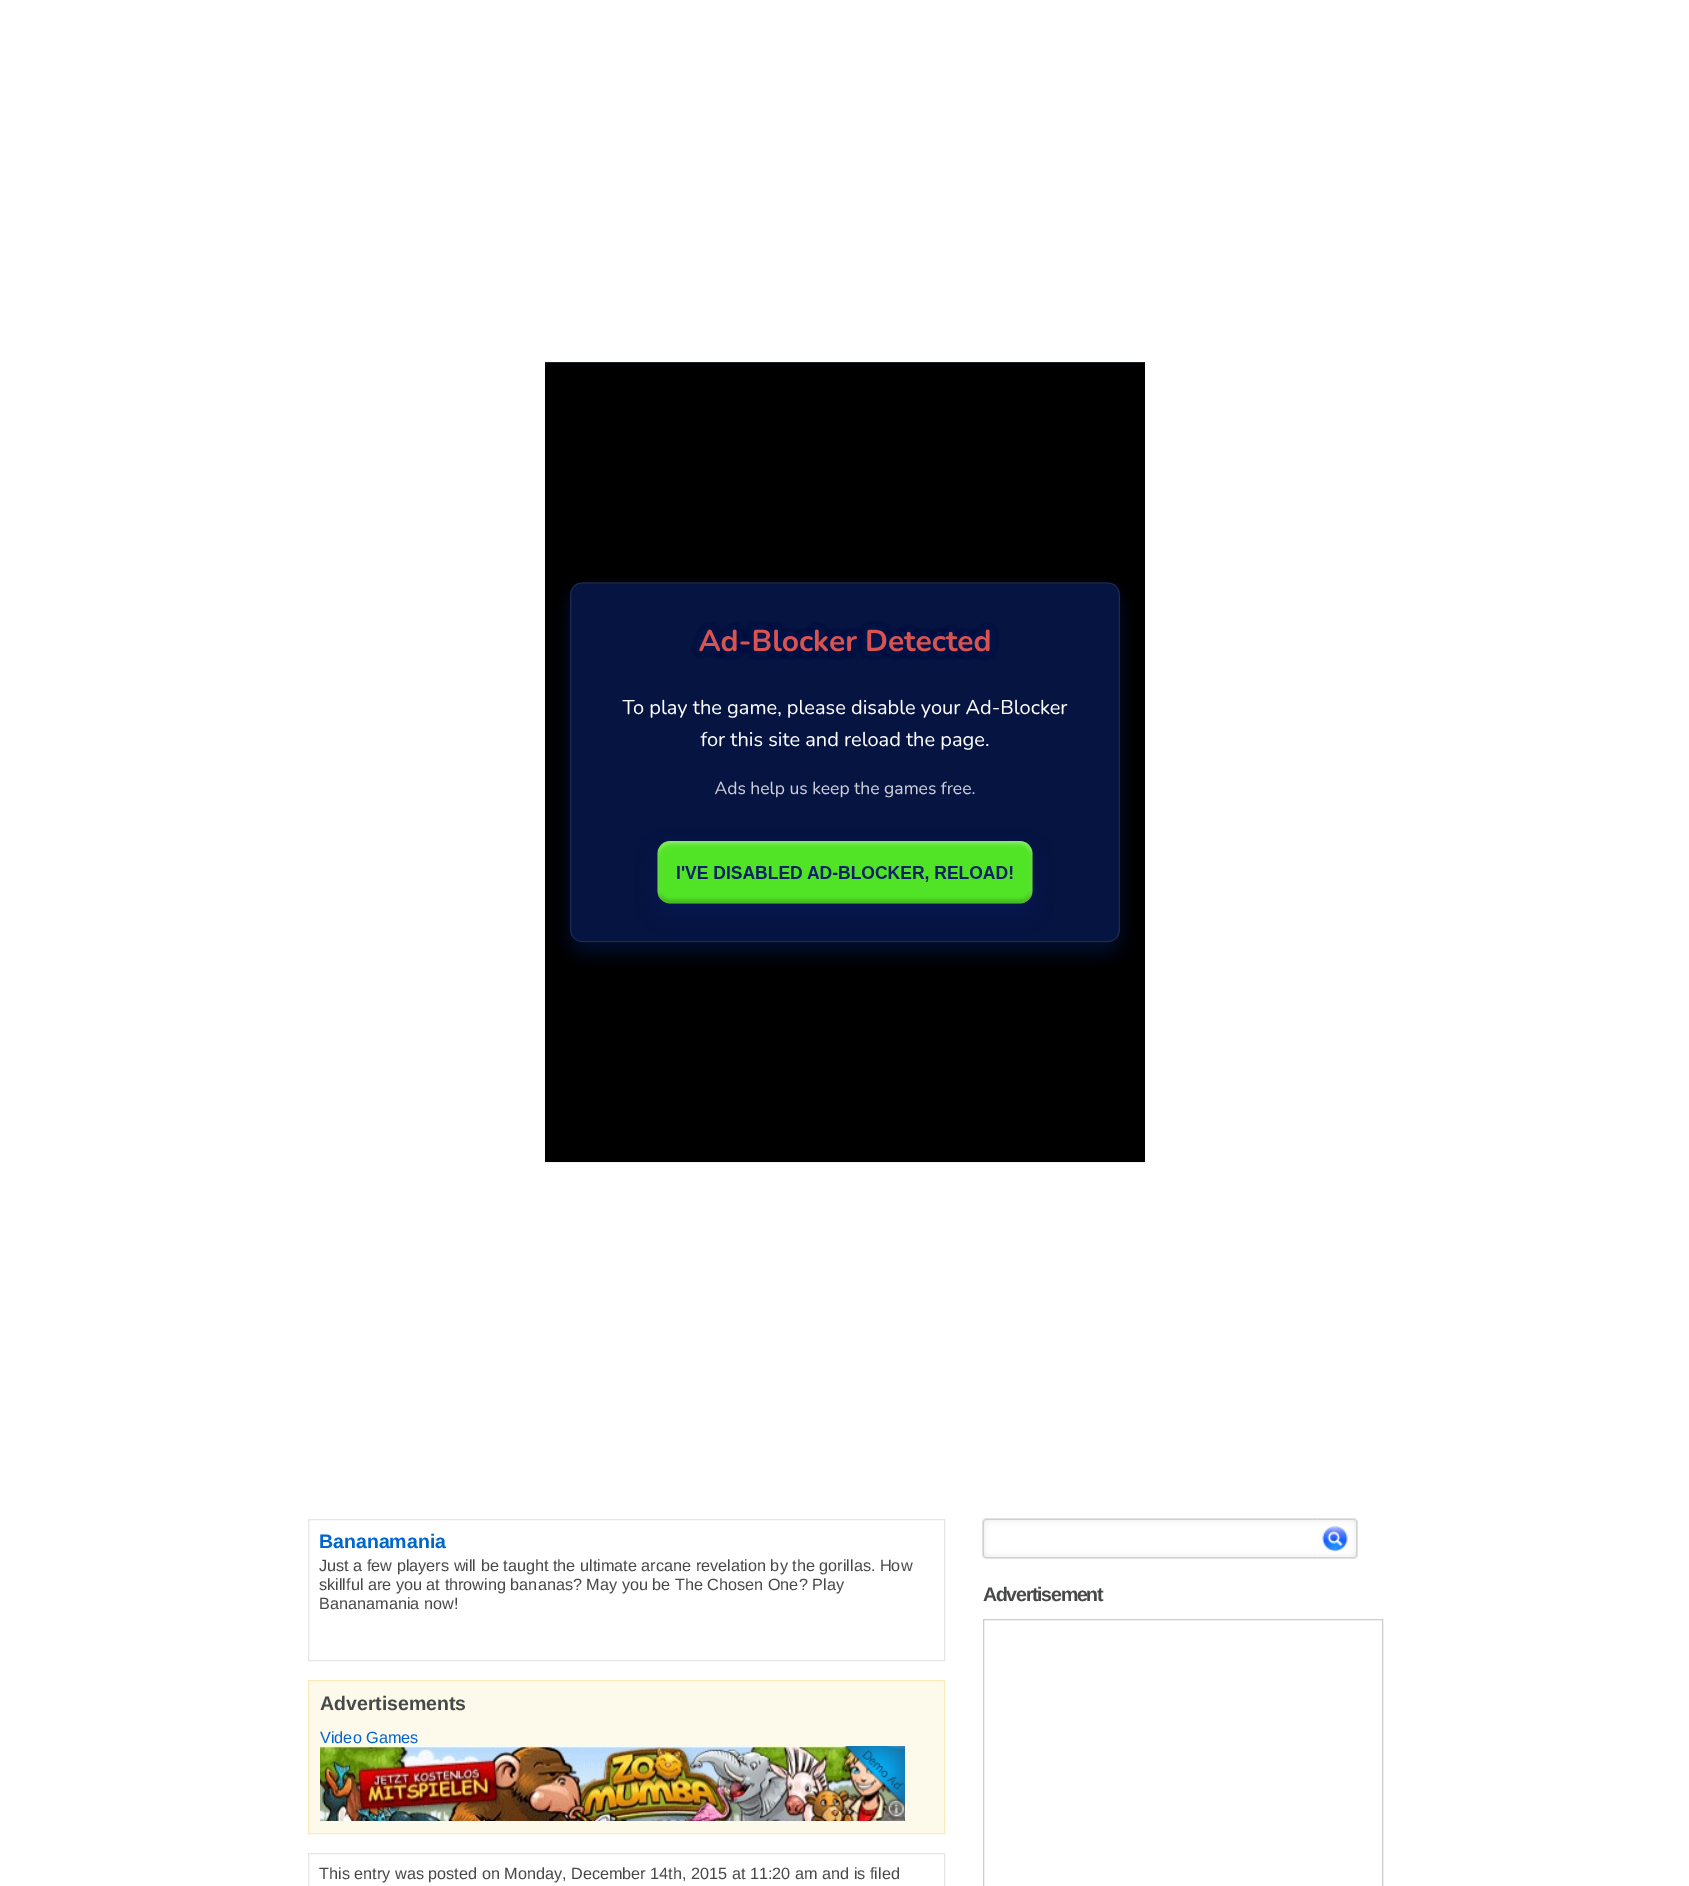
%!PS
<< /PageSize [1689 1886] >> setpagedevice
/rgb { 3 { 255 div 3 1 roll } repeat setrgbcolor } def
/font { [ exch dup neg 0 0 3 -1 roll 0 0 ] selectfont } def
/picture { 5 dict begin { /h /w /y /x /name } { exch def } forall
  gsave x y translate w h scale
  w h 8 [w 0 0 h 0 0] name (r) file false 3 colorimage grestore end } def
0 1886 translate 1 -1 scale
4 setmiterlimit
255 255 255 rgb
0 0 1689 1886 rectfill
(img/1.rgb) 545 362 600 801 picture
229 229 229 rgb
308.5 1519.5 636 141 rectstroke
253 249 235 rgb
308.5 1680.5 moveto 944.5 1680.5 lineto 944.5 1833.5 lineto 308.5 1833.5 lineto closepath gsave fill grestore
248 236 189 rgb
stroke
(img/2.rgb) 320 1746 585 75 picture
229 229 229 rgb
308.5 1853.5 636 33 rectstroke
(img/3.rgb) 982 1518 336 41 picture
(img/4.rgb) 1317 1518 41 41 picture
205 205 205 rgb
983.5 1619.5 399 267 rectstroke
/LiberationSans-Bold 19.5 font
0 102 203 rgb
319 1548 moveto (Bananamania) show
/LiberationSans-Regular 16.25 font
71 72 72 rgb
[
  [(Just a few players will be taught the ultimate arcane revelation by the gorillas. How) 319 1571]
  [(skillful are you at throwing bananas? May you be The Chosen One? Play) 319 1590]
  [(Bananamania now!) 319 1609]
] { aload pop moveto show } forall
/LiberationSans-Bold 19.5 font
320 1710 moveto (Advertisements) show
/LiberationSans-Regular 16.25 font
0 102 203 rgb
320 1743 moveto (Video Games) show
71 72 72 rgb
319 1879 moveto (This entry was posted on Monday, December 14th, 2015 at 11:20 am and is filed) show
/LiberationSans-Bold 19.5 font
983 1601 moveto -1.25 0 (Advertisement) ashow
showpage
